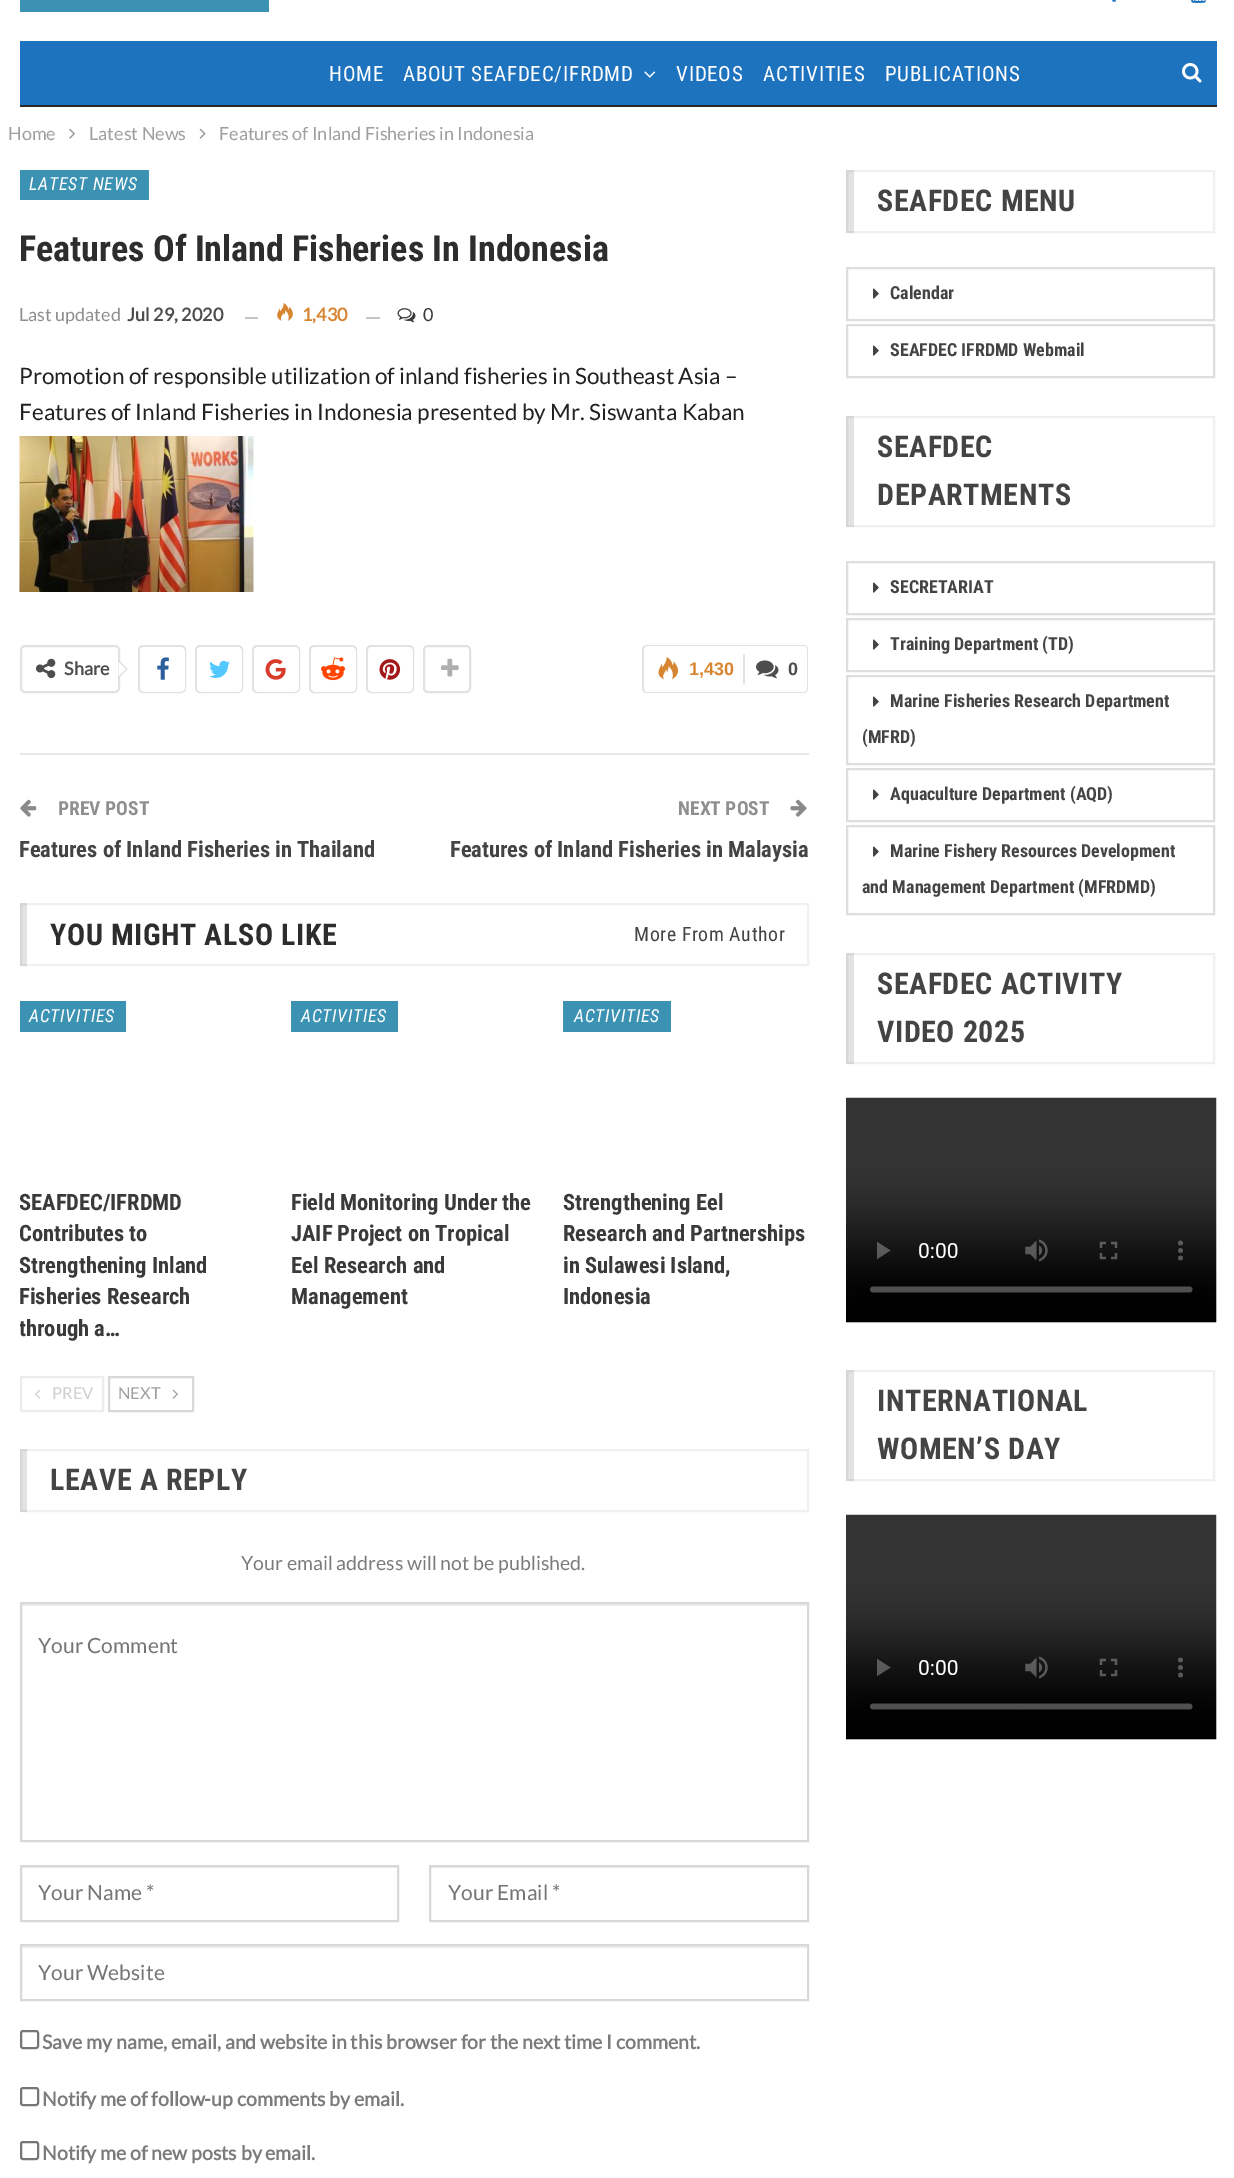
%!PS
<< /PageSize [1234 2178] /PageUsesTransparency true >> setpagedevice
/rgb { 3 { 255 div 3 1 roll } repeat setrgbcolor } def
/font { [ exch dup neg 0 0 3 -1 roll 0 0 ] selectfont } def
/alpha { dup .setfillconstantalpha .setstrokeconstantalpha } def
/roundrect { 5 dict begin { /r /h /w /y /x } { exch def } forall
  x r add y moveto x w add y 2 copy h add r arct x w add y h add x 1 index r arct
  x y h add x y r arct x y 2 copy exch w add exch r arct closepath end } def
/picture { 5 dict begin { /h /w /y /x /name } { exch def } forall
  gsave x y translate w h scale
  w h 8 [w 0 0 h 0 0] name (r) file false 3 colorimage grestore end } def
0 .pushpdf14devicefilter
0 2178 translate 1 -1 scale
4 setmiterlimit
255 255 255 rgb
0 0 1234 2178 rectfill
60 146 179 rgb
20 0 249 12 rectfill
(img/1.rgb) 1112 0 4 2 picture
(img/2.rgb) 1191 0 15 3 picture
30 115 190 rgb
20 41 1197 64 rectfill
41 41 41 rgb
20 105 1197 2 rectfill
(img/3.rgb) 644 71 12 7 picture
(img/4.rgb) 1182 63 20 20 picture
(img/5.rgb) 69 128 6 11 picture
(img/6.rgb) 199 128 7 11 picture
60 146 179 rgb
20 170 129 30 rectfill
196 196 196 rgb
245 317 13 2 rectfill
(img/7.rgb) 277 303 16 18 picture
366 317 14 2 rectfill
(img/8.rgb) 397 308 19 15 picture
(img/9.rgb) 19 436 235 156 picture
226 226 226 rgb
2 setlinewidth
21 646 98 46 4 roundrect stroke
(img/10.rgb) 36 658 20 21 picture
215 215 215 rgb
118.5 678 moveto 118.5 660 lineto 127.5 669 lineto closepath fill
255 255 255 rgb
118.5 676.5 moveto 118.5 661.5 lineto 126 669 lineto closepath fill
226 226 226 rgb
139 646 46 46 4 roundrect stroke
255 255 255 rgb
140 647 45 45 5 roundrect fill
(img/11.rgb) 157 657 12 23 picture
226 226 226 rgb
196 646 46 46 4 roundrect stroke
255 255 255 rgb
197 647 45 45 5 roundrect fill
(img/12.rgb) 209 660 21 18 picture
226 226 226 rgb
253 646 46 46 4 roundrect stroke
255 255 255 rgb
254 647 45 45 5 roundrect fill
(img/13.rgb) 265 659 21 21 picture
226 226 226 rgb
310 646 46 46 4 roundrect stroke
255 255 255 rgb
311 647 45 45 5 roundrect fill
(img/14.rgb) 321 657 24 24 picture
226 226 226 rgb
367 646 46 46 4 roundrect stroke
255 255 255 rgb
368 647 45 45 5 roundrect fill
(img/15.rgb) 379 659 22 21 picture
226 226 226 rgb
424 646 46 46 4 roundrect stroke
(img/16.rgb) 441 658 18 19 picture
646 645 moveto 742 645 lineto 742 693 lineto 646 693 lineto 644 693 642 691 642 688 curveto 642 650 lineto 642 647 644 645 646 645 curveto closepath 646 646 moveto 742 646 lineto 742 692 lineto 646 692 lineto 645 692 644 690 644 688 curveto 644 650 lineto 644 648 645 646 646 646 curveto closepath eofill
(img/17.rgb) 658 657 20 23 picture
742 645 moveto 804 645 lineto 806 645 808 647 808 650 curveto 808 688 lineto 808 691 806 693 804 693 curveto 742 693 lineto closepath 742 646 moveto 804 646 lineto 806 646 807 648 807 650 curveto 807 688 lineto 807 690 806 692 804 692 curveto 742 692 lineto closepath eofill
743 654 2 30 rectfill
(img/18.rgb) 756 660 23 19 picture
232 232 232 rgb
20 753 789 2 rectfill
(img/19.rgb) 20 799 17 18 picture
(img/20.rgb) 790 799 17 18 picture
240 240 240 rgb
21 904 787 61 rectstroke
0.11 alpha
[
  [20 903 7 63 0 0 0]
] { aload pop rgb rectfill } forall
1 alpha
[
  [20 1001 106 31 60 146 179]
  [291 1001 107 31 60 146 179]
  [563 1001 108 31 60 146 179]
] { aload pop rgb rectfill } forall
236 236 236 rgb
21 1377 82 34 rectstroke
(img/21.rgb) 35 1389 6 10 picture
216 216 216 rgb
109 1377 84 34 rectstroke
(img/22.rgb) 172 1389 6 10 picture
240 240 240 rgb
21 1450 787 61 rectstroke
0.11 alpha
0 0 0 rgb
20 1449 7 63 rectfill
1 alpha
236 236 236 rgb
21 1604 786 2 rectfill
216 216 216 rgb
21 1603 787 238 rectstroke
236 236 236 rgb
21 1867 377 1 rectfill
216 216 216 rgb
21 1866 377 55 rectstroke
236 236 236 rgb
431 1867 376 1 rectfill
216 216 216 rgb
430 1866 378 55 rectstroke
236 236 236 rgb
21 1946 786 2 rectfill
216 216 216 rgb
21 1945 787 55 rectstroke
118 118 118 rgb
21 2031 17 17 2 roundrect stroke
21 2088 17 17 2 roundrect stroke
21 2142 17 17 2 roundrect stroke
240 240 240 rgb
847 171 367 61 rectstroke
0.11 alpha
0 0 0 rgb
846 170 8 63 rectfill
1 alpha
222 222 222 rgb
847 268 367 52 rectstroke
(img/23.rgb) 873 288 6 11 picture
847 325 367 52 rectstroke
(img/23.rgb) 873 345 6 11 picture
240 240 240 rgb
847 417 367 109 rectstroke
0.11 alpha
0 0 0 rgb
846 416 8 111 rectfill
1 alpha
222 222 222 rgb
847 562 367 52 rectstroke
(img/23.rgb) 873 582 6 11 picture
847 619 367 52 rectstroke
(img/23.rgb) 873 639 6 11 picture
847 676 367 88 rectstroke
(img/23.rgb) 873 696 6 11 picture
847 769 367 52 rectstroke
(img/23.rgb) 873 789 6 11 picture
847 826 367 88 rectstroke
(img/23.rgb) 873 846 6 11 picture
240 240 240 rgb
847 954 367 109 rectstroke
0.11 alpha
0 0 0 rgb
846 953 8 111 rectfill
1 alpha
(img/24.rgb) 846 1097 371 226 picture
240 240 240 rgb
847 1371 367 109 rectstroke
0.11 alpha
0 0 0 rgb
846 1370 8 111 rectfill
1 alpha
(img/25.rgb) 846 1514 371 226 picture
/RobotoCondensed-Regular 21 font
255 255 255 rgb
329 81 moveto 0.75 0 (HOME) ashow
403 81 moveto 0.75 0 (ABOUT SEAFDEC/IFRDMD) ashow
676 81 moveto 0.75 0 (VIDEOS) ashow
763 81 moveto 0.75 0 (ACTIVITIES) ashow
885 81 moveto 0.75 0 (PUBLICATIONS) ashow
/Lato-Regular 18 font
158 158 158 rgb
[
  [(Home) 8 140]
  [(Latest News) 89 140]
  [(Features of Inland Fisheries in Indonesia) 219 140]
] { aload pop moveto show } forall
/RobotoCondensed-Italic 18 font
255 255 255 rgb
29 190 moveto 0.75 0 (LATEST NEWS) ashow
/RobotoCondensed-Bold 36 font
45 45 45 rgb
19 261 moveto (Features Of Inland Fisheries In Indonesia) show
/Lato-Regular 18 font
143 143 143 rgb
19 321 moveto (Last updated) show
/Lato-Bold 18 font
77 77 77 rgb
127 321 moveto (Jul 29, 2020) show
216 133 49 rgb
302 321 moveto (1,430) show
/Lato-Regular 18 font
58 58 58 rgb
423 321 moveto (0) show
/Lato-Regular 22.5 font
34 34 34 rgb
19 384 moveto (Promotion of responsible utilization of inland fisheries in Southeast Asia –) show
19 420 moveto (Features of Inland Fisheries in Indonesia presented by Mr. Siswanta Kaban) show
/Lato-Bold 18 font
77 77 77 rgb
64 675 moveto (Share) show
/LiberationSans-Bold 18 font
216 133 49 rgb
689 675 moveto (1,430) show
77 77 77 rgb
788 675 moveto (0) show
/RobotoCondensed-Bold 19.5 font
143 143 143 rgb
58 815 moveto (PREV POST) show
/RobotoCondensed-Bold 22.5 font
68 68 68 rgb
19 857 moveto (Features of Inland Fisheries in Thailand) show
/RobotoCondensed-Bold 19.5 font
143 143 143 rgb
678 815 moveto (NEXT POST) show
/RobotoCondensed-Bold 22.5 font
68 68 68 rgb
450 857 moveto (Features of Inland Fisheries in Malaysia) show
/RobotoCondensed-Bold 30 font
45 45 45 rgb
50 945 moveto 0.6 0 (YOU MIGHT ALSO LIKE) ashow
/RobotoCondensed-Regular 19.75 font
68 68 68 rgb
634 941 moveto 0.6 0 (More From Author) ashow
/RobotoCondensed-Italic 18 font
255 255 255 rgb
29 1022 moveto 0.75 0 (ACTIVITIES) ashow
gsave
20 1001 789 411 rectclip
/RobotoCondensed-Bold 22.5 font
58 58 58 rgb
[
  [(SEAFDEC/IFRDMD) 19 1210]
  [(Contributes to) 19 1241]
  [(Strengthening Inland) 19 1273]
] { aload pop moveto show } forall
grestore
/RobotoCondensed-Bold 22.5 font
58 58 58 rgb
19 1304 moveto (Fisheries Research) show
gsave
20 1001 789 411 rectclip
19 1336 moveto (through a…) show
grestore
/RobotoCondensed-Italic 18 font
255 255 255 rgb
301 1022 moveto 0.75 0 (ACTIVITIES) ashow
/RobotoCondensed-Bold 22.5 font
58 58 58 rgb
[
  [(Field Monitoring Under the) 291 1210]
  [(JAIF Project on Tropical) 291 1241]
  [(Eel Research and) 291 1273]
  [(Management) 291 1304]
] { aload pop moveto show } forall
/RobotoCondensed-Italic 18 font
255 255 255 rgb
574 1022 moveto 0.75 0 (ACTIVITIES) ashow
/RobotoCondensed-Bold 22.5 font
58 58 58 rgb
[
  [(Strengthening Eel) 563 1210]
  [(Research and Partnerships) 563 1241]
  [(in Sulawesi Island,) 563 1273]
  [(Indonesia) 563 1304]
] { aload pop moveto show } forall
/Lato-Regular 16.5 font
207 207 207 rgb
52 1399 moveto (PREV) show
158 158 158 rgb
118 1399 moveto (NEXT) show
/RobotoCondensed-Bold 30 font
68 68 68 rgb
50 1490 moveto 0.6 0 (LEAVE A REPLY) ashow
/Lato-Regular 19.5 font
123 123 123 rgb
241 1570 moveto (Your email address will not be published.) show
/Lato-Regular 21 font
117 117 117 rgb
[
  [(Your Comment) 38 1653]
  [(Your Name *) 38 1900]
  [(Your Email *) 448 1900]
  [(Your Website) 38 1980]
] { aload pop moveto show } forall
/Lato-Bold 19.5 font
123 123 123 rgb
[
  [(Save my name, email, and website in this browser for the next time I comment.) 42 2049]
  [(Notify me of follow-up comments by email.) 42 2106]
  [(Notify me of new posts by email.) 42 2160]
] { aload pop moveto show } forall
/RobotoCondensed-Bold 30 font
68 68 68 rgb
877 211 moveto 0.6 0 (SEAFDEC MENU) ashow
/RobotoCondensed-Bold 18 font
890 299 moveto (Calendar) show
890 356 moveto (SEAFDEC IFRDMD Webmail) show
/RobotoCondensed-Bold 30 font
877 457 moveto 0.6 0 (SEAFDEC) ashow
877 505 moveto 0.6 0 (DEPARTMENTS) ashow
/RobotoCondensed-Bold 18 font
[
  [(SECRETARIAT) 890 593]
  [(Training Department \(TD\)) 890 650]
  [(Marine Fisheries Research Department) 890 707]
  [(\(MFRD\)) 862 743]
  [(Aquaculture Department \(AQD\)) 890 800]
  [(Marine Fishery Resources Development) 890 857]
  [(and Management Department \(MFRDMD\)) 862 893]
] { aload pop moveto show } forall
/RobotoCondensed-Bold 30 font
877 994 moveto 0.6 0 (SEAFDEC ACTIVITY) ashow
877 1042 moveto 0.6 0 (VIDEO 2025) ashow
877 1411 moveto 0.6 0 (INTERNATIONAL) ashow
877 1459 moveto 0.6 0 (WOMEN’S DAY) ashow
.poppdf14devicefilter showpage
